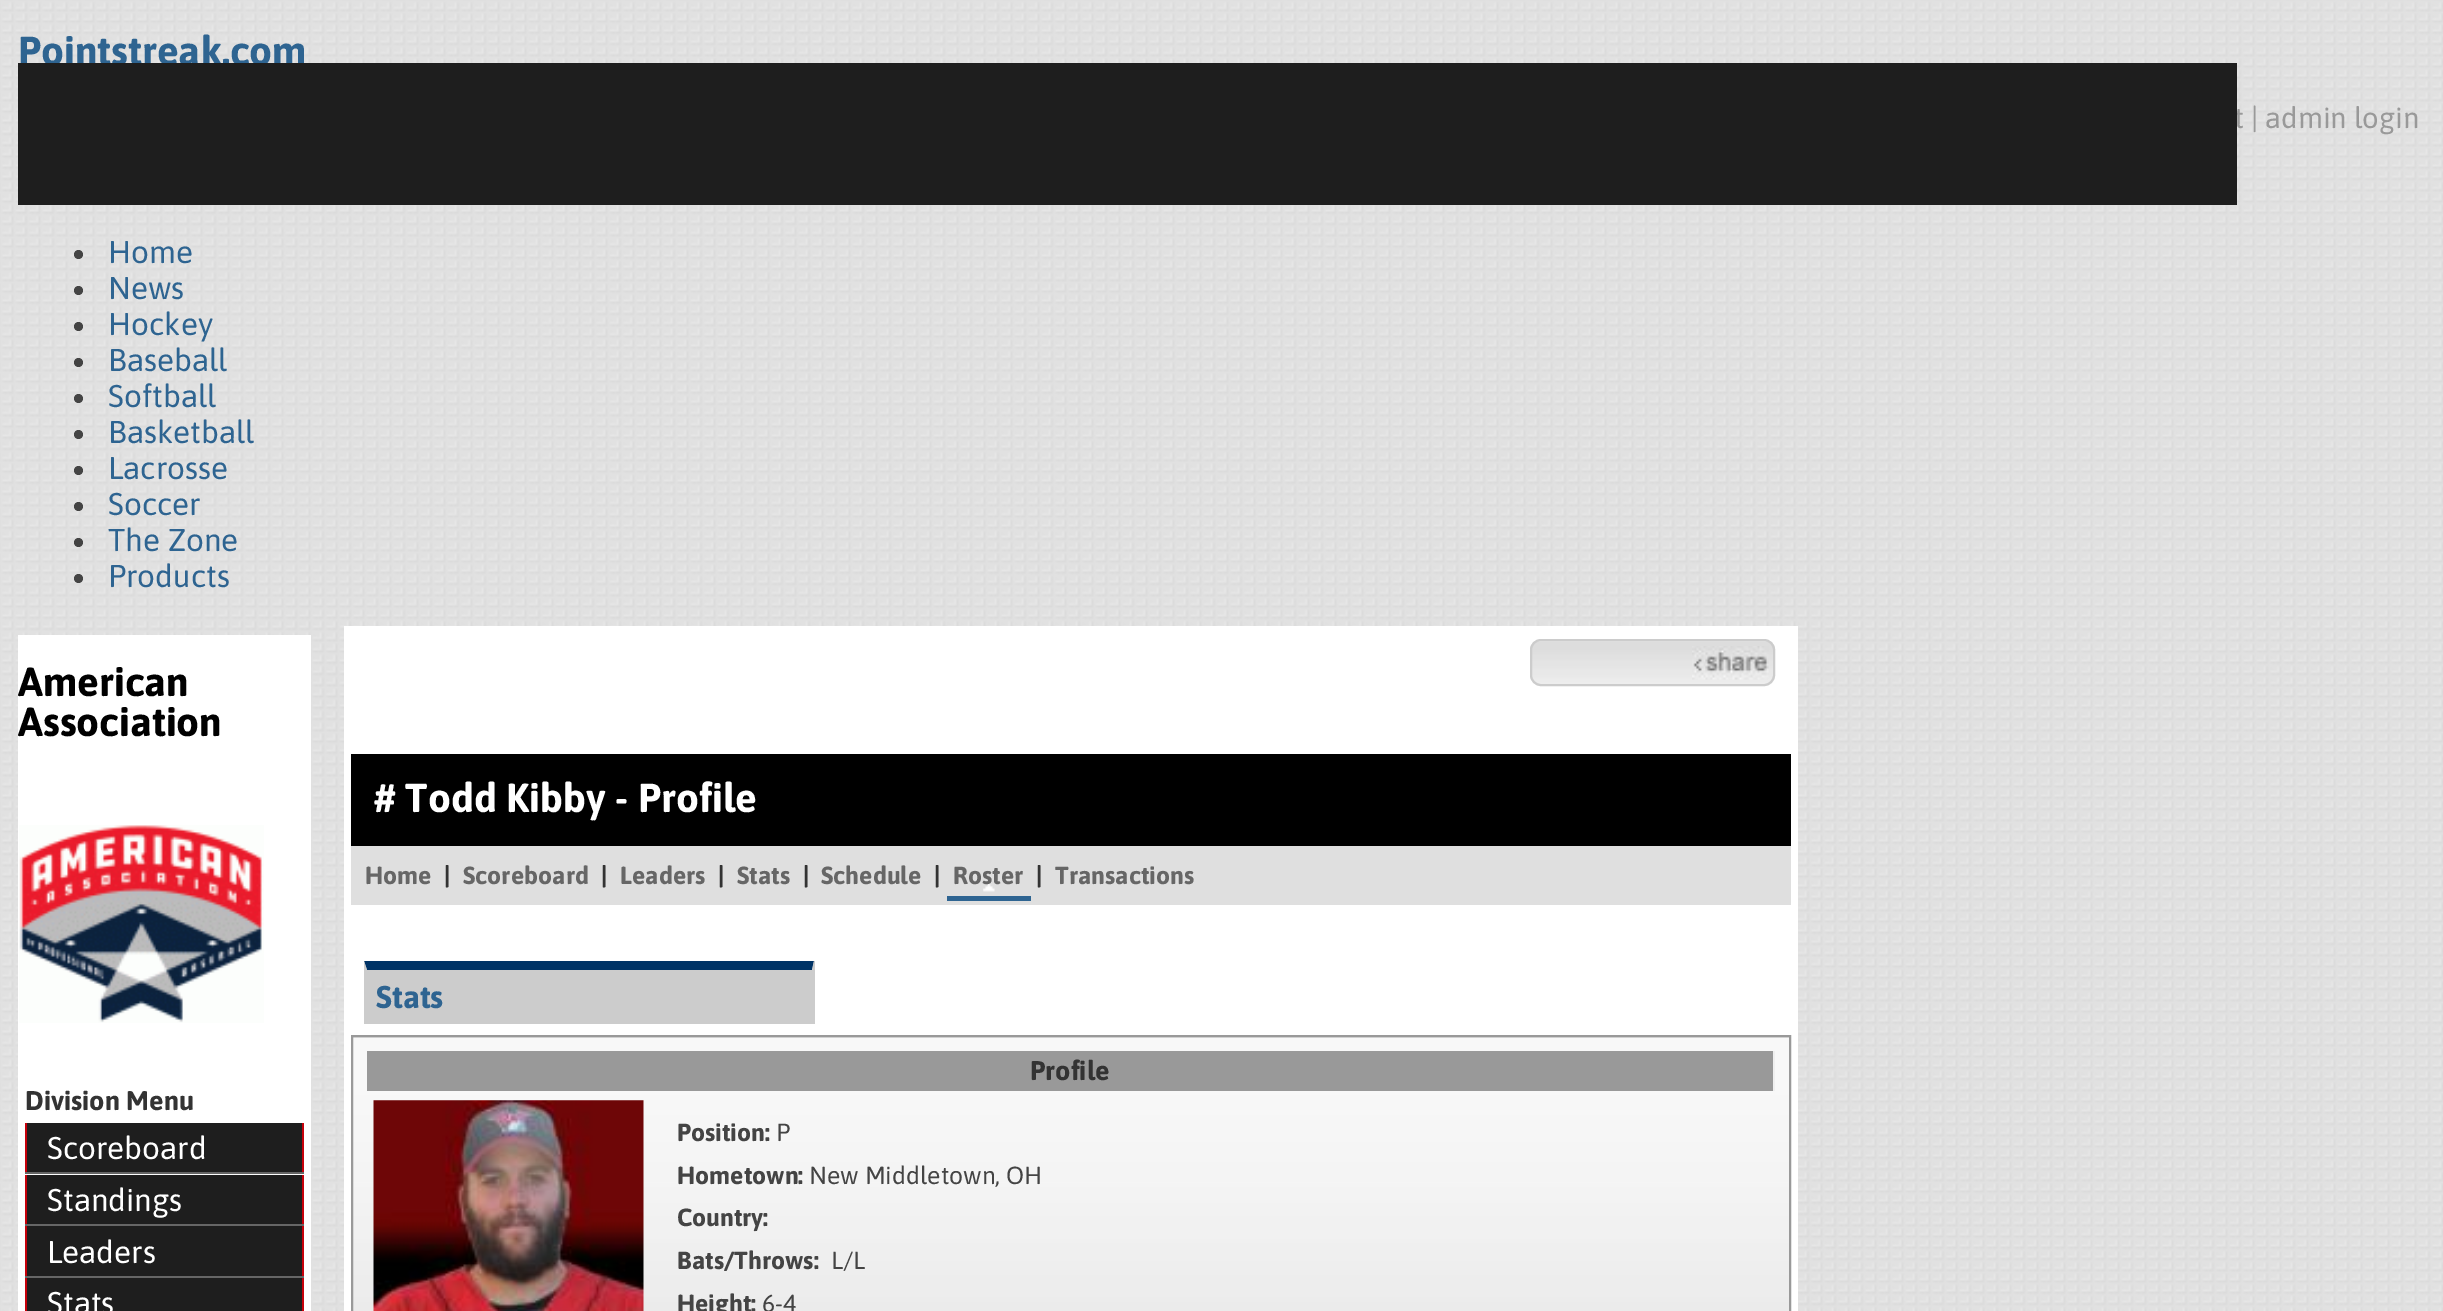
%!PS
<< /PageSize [2443 1311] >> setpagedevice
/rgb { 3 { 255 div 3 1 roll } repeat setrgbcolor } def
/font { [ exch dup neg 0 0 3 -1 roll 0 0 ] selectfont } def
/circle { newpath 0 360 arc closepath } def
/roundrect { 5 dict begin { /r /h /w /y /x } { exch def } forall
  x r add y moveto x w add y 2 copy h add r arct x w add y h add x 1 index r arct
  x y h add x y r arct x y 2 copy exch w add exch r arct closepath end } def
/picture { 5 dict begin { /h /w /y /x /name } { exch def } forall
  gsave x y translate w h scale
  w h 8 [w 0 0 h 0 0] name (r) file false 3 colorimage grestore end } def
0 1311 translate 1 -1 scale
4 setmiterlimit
255 255 255 rgb
0 0 2443 1311 rectfill
(img/1.rgb) 0 0 2443 1311 picture
68 68 68 rgb
78.5 254.5 4.5 circle fill
78.5 290.5 4.5 circle fill
78.5 326.5 4.5 circle fill
78.5 362.5 4.5 circle fill
78.5 398.5 4.5 circle fill
78.5 434.5 4.5 circle fill
78.5 470.5 4.5 circle fill
78.5 506.5 4.5 circle fill
78.5 542.5 4.5 circle fill
78.5 578.5 4.5 circle fill
255 255 255 rgb
18 635 293 676 rectfill
(img/2.rgb) 19 825 245 198 picture
[
  [25 1172 279 2 102 102 102]
  [27 1123 275 49 30 30 30]
  [302 1123 2 49 198 0 10]
  [25 1123 2 49 198 0 10]
  [25 1224 279 2 102 102 102]
  [27 1175 275 49 30 30 30]
  [302 1175 2 49 198 0 10]
  [25 1175 2 49 198 0 10]
  [25 1276 279 2 102 102 102]
  [27 1226 275 50 30 30 30]
  [302 1226 2 50 198 0 10]
  [25 1226 2 50 198 0 10]
  [27 1278 275 33 30 30 30]
  [302 1278 2 33 198 0 10]
  [25 1278 2 33 198 0 10]
  [344 626 1454 685 255 255 255]
] { aload pop rgb rectfill } forall
(img/3.rgb) 1530 641 245 45 picture
204 204 204 rgb
2 setlinewidth
1531 640 243 45 10 roundrect stroke
(img/4.rgb) 1692 646 77 34 picture
[
  [351 754 1440 92 0 0 0]
  [351 846 1440 59 223 223 223]
  [947 896 84 5 46 100 145]
] { aload pop rgb rectfill } forall
(img/5.rgb) 983 884 12 8 picture
204 204 204 rgb
365 961 450 63 rectfill
0 51 102 rgb
364 961 moveto 814 961 lineto 812 970 lineto 367 970 lineto closepath fill
204 204 204 rgb
814 961 moveto 814 1024 lineto 812 1024 lineto 812 970 lineto closepath fill
364 1024 moveto 364 961 lineto 367 970 lineto 367 1024 lineto closepath fill
(img/6.rgb) 353 1037 1436 274 picture
153 153 153 rgb
352 1036 1438 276 rectstroke
367 1051 1406 40 rectfill
239 239 239 rgb
1773 1051 2 40 rectfill
(img/7.rgb) 373 1100 271 211 picture
/Asap-Bold 40.5 font
46 100 145 rgb
18 65 moveto (Pointstreak.com) show
/Asap-Regular 29.25 font
153 153 153 rgb
2234 128 moveto (t | admin login) show
/Asap-Regular 31.5 font
46 100 145 rgb
[
  [(Home) 108 263]
  [(News) 108 299]
  [(Hockey) 108 335]
  [(Baseball) 108 371]
  [(Softball) 108 407]
  [(Basketball) 108 443]
  [(Lacrosse) 108 479]
  [(Soccer) 108 515]
  [(The Zone) 108 551]
  [(Products) 108 587]
] { aload pop moveto show } forall
30 30 30 rgb
18 63 2219 142 rectfill
/Asap-Bold 40.5 font
0 0 0 rgb
18 696 moveto (American) show
18 736 moveto (Association) show
/Asap-Bold 27 font
51 51 51 rgb
25 1110 moveto (Division Menu) show
/Asap-Regular 31.5 font
255 255 255 rgb
[
  [(Scoreboard) 47 1159]
  [(Standings) 47 1211]
  [(Leaders) 47 1263]
  [(Stats) 47 1314]
] { aload pop moveto show } forall
/Asap-Bold 40.5 font
374 812 moveto (# Todd Kibby - Profile) show
/Asap-Bold 24.75 font
102 102 102 rgb
365 884 moveto (Home) show
51 51 51 rgb
444 884 moveto (|) show
102 102 102 rgb
463 884 moveto (Scoreboard) show
51 51 51 rgb
601 884 moveto (|) show
102 102 102 rgb
620 884 moveto (Leaders) show
51 51 51 rgb
718 884 moveto (|) show
102 102 102 rgb
737 884 moveto (Stats) show
51 51 51 rgb
803 884 moveto (|) show
102 102 102 rgb
821 884 moveto (Schedule) show
51 51 51 rgb
934 884 moveto (|) show
102 102 102 rgb
953 884 moveto (Roster) show
51 51 51 rgb
1036 884 moveto (|) show
102 102 102 rgb
1055 884 moveto (Transactions) show
/Asap-Bold 31.5 font
46 100 145 rgb
376 1008 moveto (Stats) show
/Asap-Bold 27 font
51 51 51 rgb
1030 1080 moveto (Profile) show
/Asap-Bold 24.75 font
68 68 68 rgb
677 1141 moveto (Position:) show
/Asap-Regular 24.75 font
776 1141 moveto (P) show
/Asap-Bold 24.75 font
677 1184 moveto (Hometown:) show
/Asap-Regular 24.75 font
809 1184 moveto (New Middletown, OH) show
/Asap-Bold 24.75 font
677 1226 moveto (Country:) show
677 1269 moveto (Bats/Throws:) show
/Asap-Regular 24.75 font
831 1269 moveto (L/L) show
/Asap-Bold 24.75 font
677 1312 moveto (Height:) show
/Asap-Regular 24.75 font
762 1312 moveto (6-4) show
showpage
